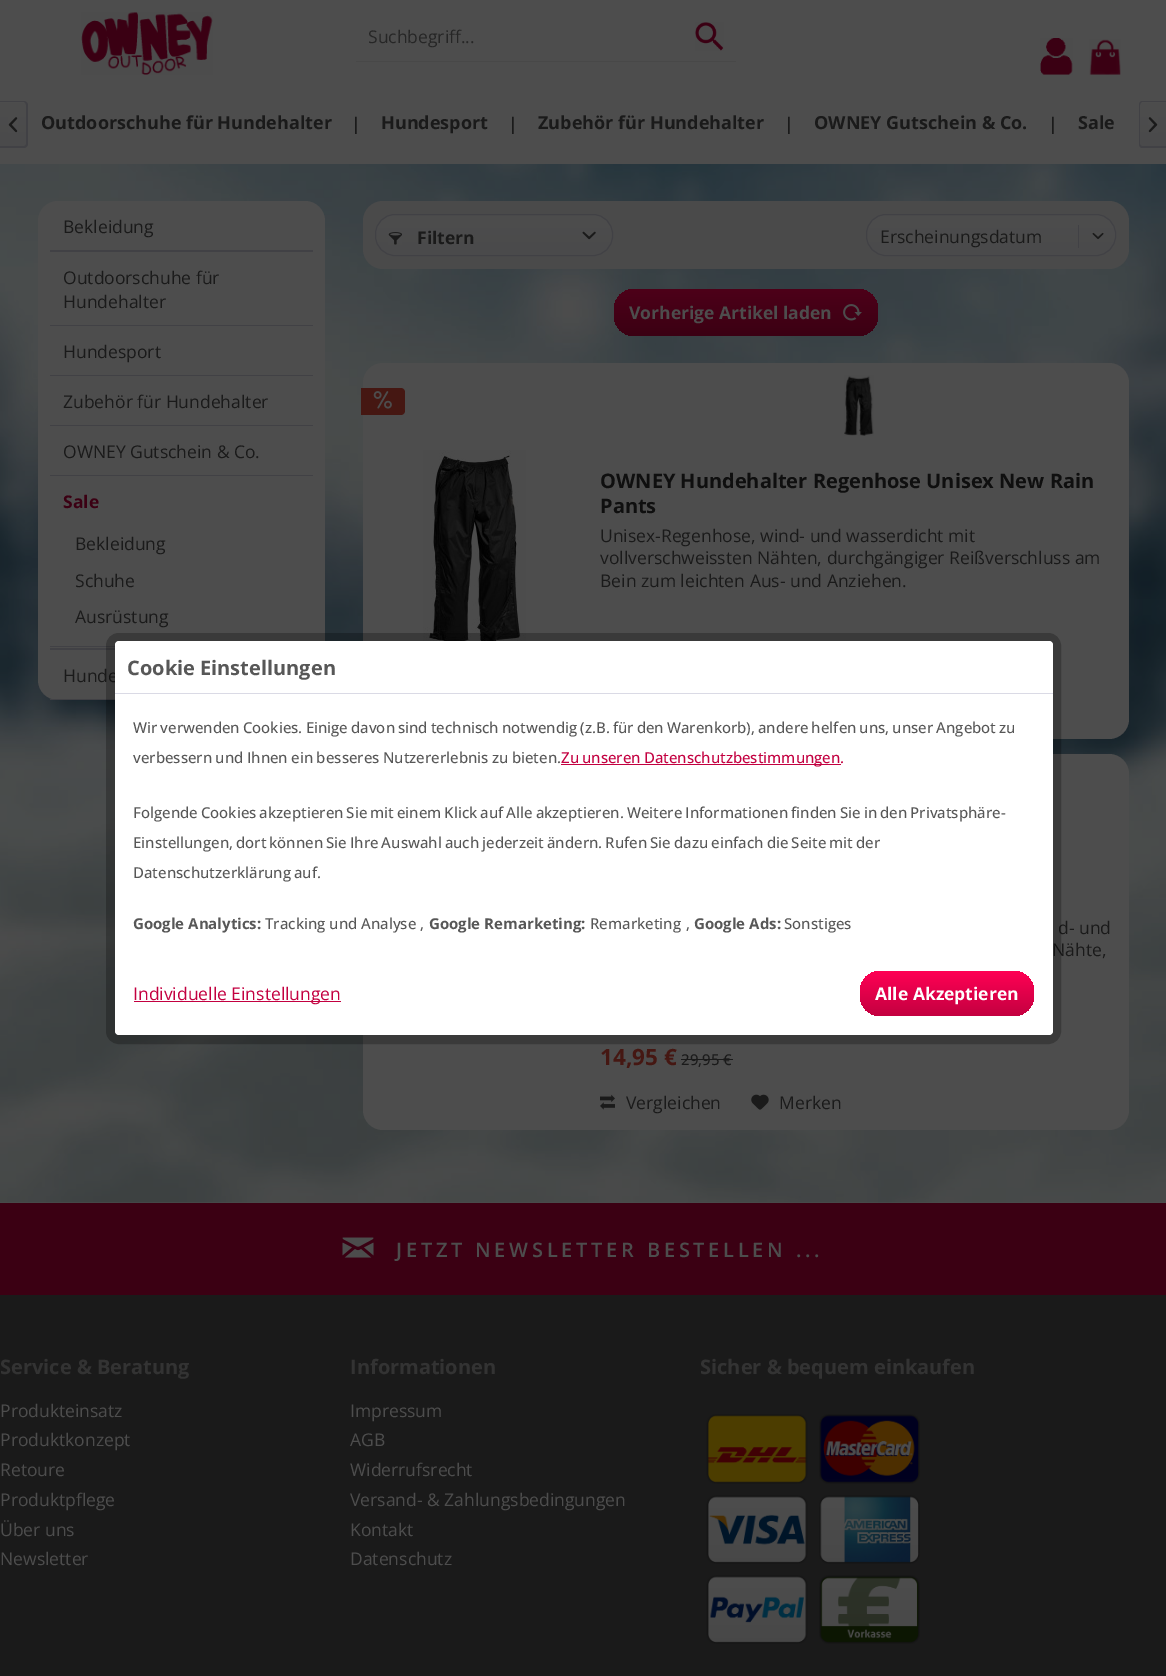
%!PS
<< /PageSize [1166 1676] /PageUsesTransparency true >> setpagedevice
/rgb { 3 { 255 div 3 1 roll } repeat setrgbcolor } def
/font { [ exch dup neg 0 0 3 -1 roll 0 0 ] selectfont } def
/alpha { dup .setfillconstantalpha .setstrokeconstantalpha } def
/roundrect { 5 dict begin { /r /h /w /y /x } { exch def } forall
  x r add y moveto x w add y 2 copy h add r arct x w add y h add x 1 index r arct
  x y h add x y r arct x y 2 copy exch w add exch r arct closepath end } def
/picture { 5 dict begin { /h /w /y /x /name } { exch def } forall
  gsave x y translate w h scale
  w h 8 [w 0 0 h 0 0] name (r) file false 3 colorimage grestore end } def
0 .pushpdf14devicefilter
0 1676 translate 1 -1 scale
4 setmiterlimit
77 77 77 rgb
0 0 1166 1676 rectfill
(img/1.rgb) 81 12 132 63 picture
72 72 72 rgb
356 61 380 1 rectfill
(img/2.rgb) 695 22 29 29 picture
(img/3.rgb) 1040 38 33 37 picture
(img/4.rgb) 1089 39 32 36 picture
gsave 0 103 moveto 23.5 103 lineto 25 103 26 104 26 105.5 curveto 26 143.5 lineto 26 145 25 146 23.5 146 curveto 0 146 lineto closepath clip newpath
<< /ShadingType 2 /ColorSpace /DeviceRGB /Coords [13 103 13 146] /Extend [true true] /Function << /FunctionType 2 /Domain [0 1] /C0 [0.302 0.302 0.302] /C1 [0.29 0.29 0.294] /N 1 >> >> shfill grestore
65 65 69 rgb
0 101 moveto 24 101 lineto 26 101 28 103 28 105 curveto 28 144 lineto 28 146 26 148 24 148 curveto 0 148 lineto closepath 0 102 moveto 24 102 lineto 25 102 26 104 26 105 curveto 26 144 lineto 26 145 25 146 24 146 curveto 0 146 lineto closepath eofill
(img/5.rgb) 8 117 10 16 picture
gsave 1142.5 103 moveto 1166 103 lineto 1166 146 lineto 1142.5 146 lineto 1141 146 1140 145 1140 143.5 curveto 1140 105.5 lineto 1140 104 1141 103 1142.5 103 curveto closepath clip newpath
<< /ShadingType 2 /ColorSpace /DeviceRGB /Coords [1153 103 1153 146] /Extend [true true] /Function << /FunctionType 2 /Domain [0 1] /C0 [0.302 0.302 0.302] /C1 [0.29 0.29 0.294] /N 1 >> >> shfill grestore
1142 101 moveto 1166 101 lineto 1166 148 lineto 1142 148 lineto 1140 148 1139 146 1139 144 curveto 1139 105 lineto 1139 103 1140 101 1142 101 curveto closepath 1142 102 moveto 1166 102 lineto 1166 146 lineto 1142 146 lineto 1141 146 1140 145 1140 144 curveto 1140 105 lineto 1140 104 1141 102 1142 102 curveto closepath eofill
(img/6.rgb) 1148 117 10 16 picture
(img/7.rgb) 0 164 1166 1039 picture
77 77 77 rgb
38 201 287 499 20 roundrect fill
[
  [50 250 263 2 65 65 69]
  [50 325 263 1 65 65 69]
  [50 375 263 1 65 65 69]
  [50 425 263 1 65 65 69]
  [50 475 263 1 65 65 69]
  [50 646 65 1 65 65 69]
  [50 648 65 2 65 65 69]
  [50 699 65 1 65 65 69]
] { aload pop rgb rectfill } forall
74 74 74 rgb
363 201 766 68 20 roundrect fill
gsave 376 215 235 40 19 roundrect clip newpath
<< /ShadingType 2 /ColorSpace /DeviceRGB /Coords [494 215 494 255] /Extend [true true] /Function << /FunctionType 2 /Domain [0 1] /C0 [0.302 0.302 0.302] /C1 [0.29 0.29 0.294] /N 1 >> >> shfill grestore
65 65 69 rgb
375.5 214.5 237 41 19.5 roundrect stroke
(img/8.rgb) 388 232 14 13 picture
(img/9.rgb) 582 231 14 9 picture
gsave 868 215 247 40 19 roundrect clip newpath
<< /ShadingType 2 /ColorSpace /DeviceRGB /Coords [991 215 991 255] /Extend [true true] /Function << /FunctionType 2 /Domain [0 1] /C0 [0.302 0.302 0.302] /C1 [0.29 0.29 0.294] /N 1 >> >> shfill grestore
866.5 214.5 249 41 19.5 roundrect stroke
1078 225 1 23 rectfill
(img/10.rgb) 1092 232 12 8 picture
gsave 614 289 264 47 20 roundrect clip newpath
<< /ShadingType 2 /ColorSpace /DeviceRGB /Coords [746 289 746 336] /Extend [true true] /Function << /FunctionType 2 /Domain [0 1] /C0 [0.302 0 0.098] /C1 [0.231 0 0.075] /N 1 >> >> shfill grestore
(img/11.rgb) 843 304 19 17 picture
77 77 77 rgb
363 363 766 376 20 roundrect fill
69 23 18 rgb
361 388 moveto 401 388 lineto 403 388 405 390 405 392 curveto 405 411 lineto 405 413 403 415 401 415 curveto 361 415 lineto closepath fill
(img/12.rgb) 373 391 19 18 picture
(img/13.rgb) 844 375 30 61 picture
(img/14.rgb) 423 450 103 191 picture
77 77 77 rgb
363 754 766 376 20 roundrect fill
26 26 26 rgb
681 1059 52 1 rectfill
(img/15.rgb) 600 1094 15 16 picture
(img/16.rgb) 751 1094 18 16 picture
0 1295 1166 381 rectfill
59 0 19 rgb
0 1203 1166 92 rectfill
(img/17.rgb) 342 1237 32 21 picture
(img/18.rgb) 706 1414 102 70 picture
(img/19.rgb) 819 1414 101 70 picture
(img/20.rgb) 706 1495 102 69 picture
(img/21.rgb) 819 1495 101 69 picture
(img/22.rgb) 706 1575 102 69 picture
(img/23.rgb) 819 1575 101 69 picture
/OpenSans-Regular 17.5 font
38 38 38 rgb
368 43 moveto (Suchbegriff...) show
/OpenSans-Bold 18 font
26 26 26 rgb
41 129 moveto (Outdoorschuhe für Hundehalter) show
/OpenSans-Bold 17.5 font
351 130 moveto (|) show
/OpenSans-Bold 18 font
381 129 moveto (Hundesport) show
/OpenSans-Bold 17.5 font
508 130 moveto (|) show
/OpenSans-Bold 18 font
538 129 moveto (Zubehör für Hundehalter) show
/OpenSans-Bold 17.5 font
784 130 moveto (|) show
/OpenSans-Bold 18 font
814 129 moveto (OWNEY Gutschein & Co.) show
/OpenSans-Bold 17.5 font
1048 130 moveto (|) show
/OpenSans-Bold 18 font
1078 129 moveto (Sale) show
/OpenSans-Regular 17.5 font
[
  [(Bekleidung) 63 233]
  [(Outdoorschuhe für) 63 284]
  [(Hundehalter) 63 308]
  [(Hundesport) 63 358]
  [(Zubehör für Hundehalter) 63 408]
  [(OWNEY Gutschein & Co.) 63 458]
] { aload pop moveto show } forall
/OpenSans-Bold 17.5 font
59 0 19 rgb
63 508 moveto (Sale) show
/OpenSans-Regular 17.5 font
26 26 26 rgb
[
  [(Bekleidung) 75 550]
  [(Schuhe) 75 587]
  [(Ausrüstung) 75 623]
  [(Hunde) 63 682]
] { aload pop moveto show } forall
/OpenSans-Bold 17.5 font
417 244 moveto (Filtern) show
/OpenSans-Regular 17.5 font
880 243 moveto (Erscheinungsdatum) show
/OpenSans-Bold 17.5 font
77 77 77 rgb
629 319 moveto (Vorherige Artikel laden) show
/OpenSans-Bold 20 font
15 15 15 rgb
600 488 moveto (OWNEY Hundehalter Regenhose Unisex New Rain) show
600 513 moveto (Pants) show
/OpenSans-Regular 17.5 font
26 26 26 rgb
[
  [(Unisex-Regenhose, wind- und wasserdicht mit) 600 542]
  [(vollverschweissten Nähten, durchgängiger Reißverschluss am) 600 564]
  [(Bein zum leichten Aus- und Anziehen.) 600 587]
  [(d- und) 1058 934]
  [(Nähte,) 1052 956]
] { aload pop moveto show } forall
/OpenSans-Bold 22.5 font
69 23 18 rgb
600 1065 moveto (14,95 €) show
/OpenSans-Medium 15 font
26 26 26 rgb
681 1065 moveto (29,95 €) show
/OpenSans-Regular 17.5 font
626 1109 moveto (Vergleichen) show
779 1109 moveto (Merken) show
/OpenSans-SemiBold 20 font
77 77 77 rgb
396 1257 moveto 3.75 0 (JETZT NEWSLETTER BESTELLEN ...) ashow
/OpenSans-Bold 20 font
51 51 51 rgb
0 1374 moveto (Service & Beratung) show
/OpenSans-Regular 17.5 font
77 77 77 rgb
[
  [(Produkteinsatz) 0 1417]
  [(Produktkonzept) 0 1446]
  [(Retoure) 0 1476]
  [(Produktpflege) 0 1506]
  [(Über uns) 0 1536]
  [(Newsletter) 0 1565]
] { aload pop moveto show } forall
/OpenSans-Bold 20 font
51 51 51 rgb
350 1374 moveto (Informationen) show
/OpenSans-Regular 17.5 font
77 77 77 rgb
[
  [(Impressum) 350 1417]
  [(AGB) 350 1446]
  [(Widerrufsrecht) 350 1476]
  [(Versand- & Zahlungsbedingungen) 350 1506]
  [(Kontakt) 350 1536]
  [(Datenschutz) 350 1565]
] { aload pop moveto show } forall
/OpenSans-Bold 20 font
51 51 51 rgb
700 1374 moveto (Sicher & bequem einkaufen) show
0.25 alpha
0 0 0 rgb
9 setlinewidth
110.5 637.5 946 402 8.5 roundrect stroke
1 alpha
255 255 255 rgb
115 641 938 394 4 roundrect fill
218 218 229 rgb
115 693 938 1 rectfill
87 87 87 rgb
127 675 moveto (Cookie Einstellungen) show
/OpenSans-Medium 15 font
133 733 moveto -0.9 0 32 (Wir verwenden Cookies. Einige davon sind technisch notwendig \(z.B. für den Warenkorb\), andere helfen uns, unser Angebot zu) widthshow
133 763 moveto -0.5 0 32 (verbessern und Ihnen ein besseres Nutzererlebnis zu bieten.) widthshow
195 0 64 rgb
561 764 280 1 rectfill
561 763 moveto -0.9 0 32 (Zu unseren Datenschutzbestimmungen.) widthshow
87 87 87 rgb
133 818 moveto -0.9 0 32 (Folgende Cookies akzeptieren Sie mit einem Klick auf Alle akzeptieren. Weitere Informationen finden Sie in den Privatsphäre-) widthshow
133 848 moveto -0.9 0 32 (Einstellungen, dort können Sie Ihre Auswahl auch jederzeit ändern. Rufen Sie dazu einfach die Seite mit der) widthshow
133 878 moveto -0.9 0 32 (Datenschutzerklärung auf.) widthshow
/OpenSans-Bold 15 font
133 929 moveto (Google Analytics:) show
/OpenSans-Medium 15 font
265 929 moveto (Tracking und Analyse ,) show
/OpenSans-Bold 15 font
429 929 moveto (Google Remarketing:) show
/OpenSans-Medium 15 font
590 929 moveto 1 0 32 (Remarketing ,) widthshow
/OpenSans-Bold 15 font
694 929 moveto (Google Ads:) show
/OpenSans-Medium 15 font
784 929 moveto (Sonstiges) show
195 0 64 rgb
134 1001 207 1 rectfill
/OpenSans-Regular 17.5 font
133 1000 moveto (Individuelle Einstellungen) show
gsave 860 971 174 45 20 roundrect clip newpath
<< /ShadingType 2 /ColorSpace /DeviceRGB /Coords [947 971 947 1016] /Extend [true true] /Function << /FunctionType 2 /Domain [0 1] /C0 [1 0.004 0.329] /C1 [0.765 0 0.251] /N 1 >> >> shfill grestore
/OpenSans-Bold 17.5 font
255 255 255 rgb
875 1000 moveto (Alle Akzeptieren) show
.poppdf14devicefilter showpage
